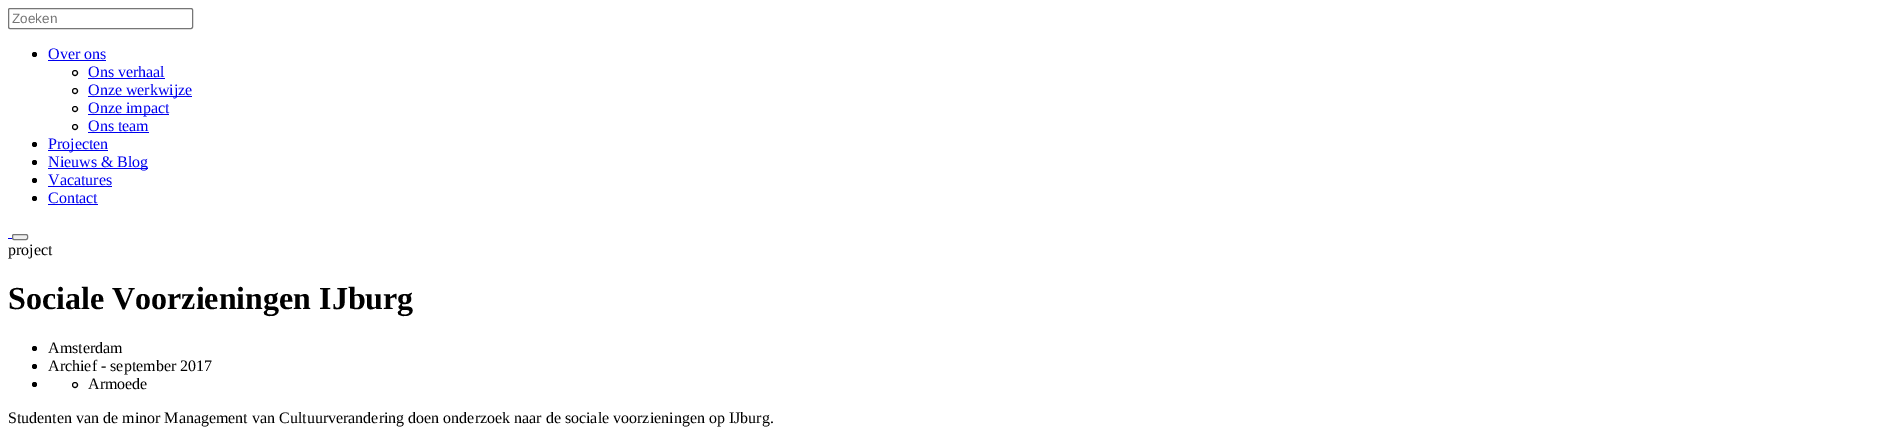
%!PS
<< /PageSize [1892 431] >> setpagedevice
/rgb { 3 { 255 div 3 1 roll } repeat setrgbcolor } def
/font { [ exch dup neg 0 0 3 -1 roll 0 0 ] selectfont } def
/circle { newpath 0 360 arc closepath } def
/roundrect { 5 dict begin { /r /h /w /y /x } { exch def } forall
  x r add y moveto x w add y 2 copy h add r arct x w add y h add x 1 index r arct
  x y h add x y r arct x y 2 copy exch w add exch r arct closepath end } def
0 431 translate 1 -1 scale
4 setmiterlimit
255 255 255 rgb
0 0 1892 431 rectfill
118 118 118 rgb
8.5 8.5 184 20 1.5 roundrect stroke
0 0 0 rgb
34.5 54.5 2.5 circle fill
0 0 238 rgb
48 60 58 1 rectfill
0 0 0 rgb
75 73 2.5 circle stroke
0 0 238 rgb
88 78 77 1 rectfill
0 0 0 rgb
75 91 2.5 circle stroke
0 0 238 rgb
88 96 104 1 rectfill
0 0 0 rgb
75 109 2.5 circle stroke
0 0 238 rgb
88 114 81 1 rectfill
0 0 0 rgb
75 127 2.5 circle stroke
0 0 238 rgb
88 132 61 1 rectfill
0 0 0 rgb
34.5 144.5 2.5 circle fill
0 0 238 rgb
48 150 60 1 rectfill
0 0 0 rgb
34.5 162.5 2.5 circle fill
0 0 238 rgb
48 168 100 1 rectfill
0 0 0 rgb
34.5 180.5 2.5 circle fill
0 0 238 rgb
48 186 64 1 rectfill
0 0 0 rgb
34.5 198.5 2.5 circle fill
0 0 238 rgb
48 204 50 1 rectfill
8 238 4 1 rectfill
239 239 239 rgb
12.5 234.5 15 5 1.5 roundrect gsave fill grestore
118 118 118 rgb
stroke
0 0 0 rgb
34.5 348.5 2.5 circle fill
34.5 366.5 2.5 circle fill
34.5 384.5 2.5 circle fill
75 385 2.5 circle stroke
/LiberationSans-Regular 13.5 font
117 117 117 rgb
12 23 moveto (Zoeken) show
/LiberationSerif-Regular 16 font
0 0 238 rgb
[
  [(Over ons) 48 59]
  [(Ons verhaal) 88 77]
  [(Onze werkwijze) 88 95]
  [(Onze impact) 88 113]
  [(Ons team) 88 131]
  [(Projecten) 48 149]
  [(Nieuws & Blog) 48 167]
  [(Vacatures) 48 185]
  [(Contact) 48 203]
] { aload pop moveto show } forall
0 0 0 rgb
8 255 moveto (project) show
/LiberationSerif-Bold 32 font
8 309 moveto (Sociale Voorzieningen IJburg) show
/LiberationSerif-Regular 16 font
[
  [(Amsterdam) 48 353]
  [(Archief - september 2017) 48 371]
  [(Armoede) 88 389]
  [(Studenten van de minor Management van Cultuurverandering doen onderzoek naar de sociale voorzieningen op IJburg.) 8 423]
] { aload pop moveto show } forall
showpage
